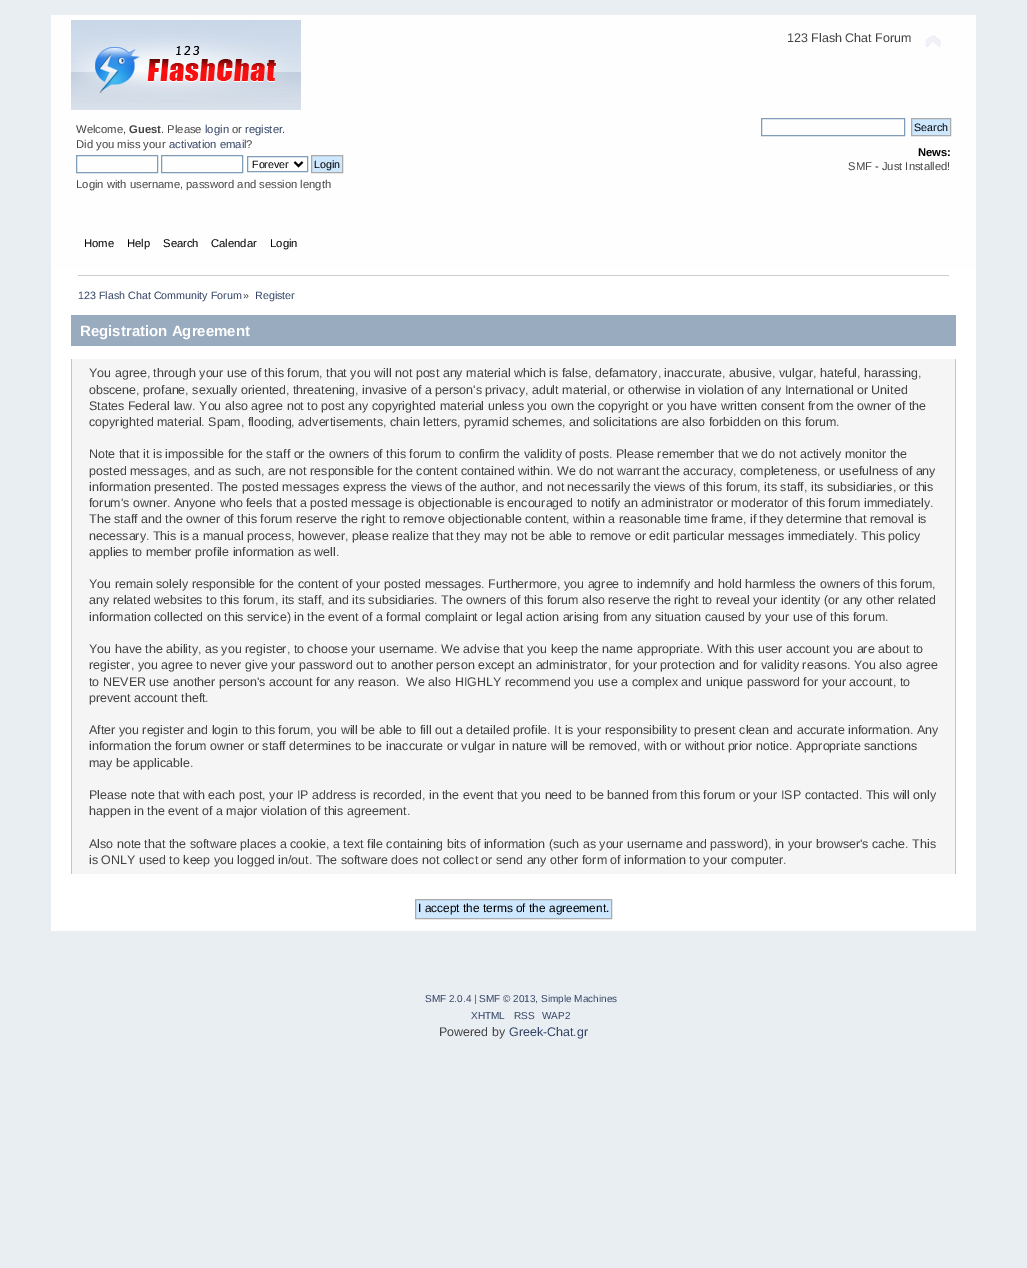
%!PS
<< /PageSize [1027 1268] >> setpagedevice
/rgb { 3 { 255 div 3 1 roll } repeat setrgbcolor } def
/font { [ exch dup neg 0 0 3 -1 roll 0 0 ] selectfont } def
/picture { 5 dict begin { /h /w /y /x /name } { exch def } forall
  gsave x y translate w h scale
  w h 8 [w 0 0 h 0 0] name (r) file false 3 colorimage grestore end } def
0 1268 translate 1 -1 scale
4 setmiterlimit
233 238 242 rgb
0 0 1027 1268 rectfill
254 254 254 rgb
51 15 925 254 rectfill
(img/1.rgb) 71 20 230 90 picture
(img/2.rgb) 925 35 16 12 picture
127 157 185 rgb
76.5 155.5 81 17 rectstroke
161.5 155.5 81 17 rectstroke
247.5 156.5 60 15 rectstroke
0 0 0 rgb
2 setlinewidth
294.5 162 moveto 298.5 166 lineto 302.5 162 lineto stroke
205 231 255 rgb
311.5 155.5 moveto 342.5 155.5 lineto 342.5 172.5 lineto 311.5 172.5 lineto closepath gsave fill grestore
170 170 170 rgb
1 setlinewidth
stroke
127 157 185 rgb
761.5 118.5 143 17 rectstroke
205 231 255 rgb
911.5 118.5 moveto 950.5 118.5 lineto 950.5 135.5 lineto 911.5 135.5 lineto closepath gsave fill grestore
170 170 170 rgb
stroke
[
  [51 269 925 662 255 255 255]
  [78 275 871 1 204 204 204]
  [71 315 885 31 153 171 191]
  [72 359 883 515 245 245 245]
  [955 359 1 515 197 197 197]
  [71 359 1 515 197 197 197]
] { aload pop rgb rectfill } forall
205 231 255 rgb
415.5 899.5 moveto 611.5 899.5 lineto 611.5 918.5 lineto 415.5 918.5 lineto closepath gsave fill grestore
170 170 170 rgb
stroke
/LiberationSans-Regular 12.48 font
68 68 68 rgb
787 42 moveto (123 Flash Chat Forum) show
/LiberationSans-Regular 11.25 font
76 133 moveto (Welcome,) show
/LiberationSans-Bold 11.25 font
129 133 moveto (Guest) show
/LiberationSans-Regular 11.25 font
161 133 moveto (. Please) show
51 68 102 rgb
205 133 moveto (login) show
68 68 68 rgb
232 133 moveto (or) show
51 68 102 rgb
245 133 moveto (register) show
68 68 68 rgb
282 133 moveto (.) show
76 148 moveto (Did you miss your) show
51 68 102 rgb
169 148 moveto (activation email) show
68 68 68 rgb
246 148 moveto (?) show
/LiberationSans-Regular 10.7 font
0 0 0 rgb
252 168 moveto (Forever) show
314 168 moveto (Login) show
/LiberationSans-Regular 11.25 font
68 68 68 rgb
76 188 moveto (Login with username, password and session length) show
/LiberationSans-Regular 10.7 font
0 0 0 rgb
914 131 moveto (Search) show
/LiberationSans-Bold 11.25 font
918 156 moveto (News:) show
/LiberationSans-Regular 11.25 font
68 68 68 rgb
848 170 moveto (SMF - Just Installed!) show
0 0 0 rgb
[
  [(Home) 84 247]
  [(Help) 127 247]
  [(Search) 163 247]
  [(Calendar) 211 247]
  [(Login) 270 247]
] { aload pop moveto show } forall
/LiberationSans-Regular 10.7 font
51 68 102 rgb
78 299 moveto (123 Flash Chat Community Forum) show
68 68 68 rgb
243 299 moveto (») show
51 68 102 rgb
255 299 moveto (Register) show
/LiberationSans-Bold 15 font
255 255 255 rgb
80 336 moveto (Registration Agreement) show
/LiberationSans-Regular 12.48 font
68 68 68 rgb
[
  [(You agree, through your use of this forum, that you will not post any material which is false, defamatory, inaccurate, abusive, vulgar, hateful, harassing,) 89 377]
  [(obscene, profane, sexually oriented, threatening, invasive of a person's privacy, adult material, or otherwise in violation of any International or United) 89 394]
  [(States Federal law. You also agree not to post any copyrighted material unless you own the copyright or you have written consent from the owner of the) 89 410]
  [(copyrighted material. Spam, flooding, advertisements, chain letters, pyramid schemes, and solicitations are also forbidden on this forum.) 89 426]
  [(Note that it is impossible for the staff or the owners of this forum to confirm the validity of posts. Please remember that we do not actively monitor the) 89 458]
  [(posted messages, and as such, are not responsible for the content contained within. We do not warrant the accuracy, completeness, or usefulness of any) 89 475]
  [(information presented. The posted messages express the views of the author, and not necessarily the views of this forum, its staff, its subsidiaries, or this) 89 491]
  [(forum's owner. Anyone who feels that a posted message is objectionable is encouraged to notify an administrator or moderator of this forum immediately.) 89 507]
  [(The staff and the owner of this forum reserve the right to remove objectionable content, within a reasonable time frame, if they determine that removal is) 89 523]
  [(necessary. This is a manual process, however, please realize that they may not be able to remove or edit particular messages immediately. This policy) 89 540]
  [(applies to member profile information as well.) 89 556]
  [(You remain solely responsible for the content of your posted messages. Furthermore, you agree to indemnify and hold harmless the owners of this forum,) 89 588]
  [(any related websites to this forum, its staff, and its subsidiaries. The owners of this forum also reserve the right to reveal your identity \(or any other related) 89 604]
  [(information collected on this service\) in the event of a formal complaint or legal action arising from any situation caused by your use of this forum.) 89 621]
  [(You have the ability, as you register, to choose your username. We advise that you keep the name appropriate. With this user account you are about to) 89 653]
  [(register, you agree to never give your password out to another person except an administrator, for your protection and for validity reasons. You also agree) 89 669]
  [(to NEVER use another person's account for any reason.  We also HIGHLY recommend you use a complex and unique password for your account, to) 89 686]
  [(prevent account theft.) 89 702]
  [(After you register and login to this forum, you will be able to fill out a detailed profile. It is your responsibility to present clean and accurate information. Any) 89 734]
  [(information the forum owner or staff determines to be inaccurate or vulgar in nature will be removed, with or without prior notice. Appropriate sanctions) 89 750]
  [(may be applicable.) 89 767]
  [(Please note that with each post, your IP address is recorded, in the event that you need to be banned from this forum or your ISP contacted. This will only) 89 799]
  [(happen in the event of a major violation of this agreement.) 89 815]
  [(Also note that the software places a cookie, a text file containing bits of information \(such as your username and password\), in your browser's cache. This) 89 848]
  [(is ONLY used to keep you logged in/out. The software does not collect or send any other form of information to your computer.) 89 864]
] { aload pop moveto show } forall
/LiberationSans-Regular 11.9 font
0 0 0 rgb
418 912 moveto (I accept the terms of the agreement.) show
/LiberationSans-Regular 10 font
51 68 102 rgb
425 1002 moveto (SMF 2.0.4) show
68 68 68 rgb
474 1002 moveto (|) show
51 68 102 rgb
479 1002 moveto (SMF © 2013) show
68 68 68 rgb
535 1002 moveto (,) show
51 68 102 rgb
[
  [(Simple Machines) 541 1002]
  [(XHTML) 471 1019]
  [(RSS) 514 1019]
  [(WAP2) 542 1019]
] { aload pop moveto show } forall
/LiberationSans-Regular 12.48 font
68 68 68 rgb
439 1036 moveto (Powered by) show
51 68 102 rgb
509 1036 moveto (Greek-Chat.gr) show
showpage
